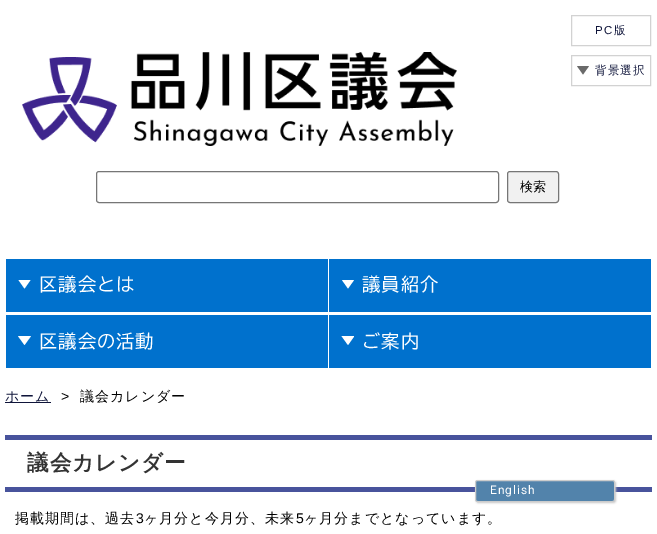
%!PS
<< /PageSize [657 534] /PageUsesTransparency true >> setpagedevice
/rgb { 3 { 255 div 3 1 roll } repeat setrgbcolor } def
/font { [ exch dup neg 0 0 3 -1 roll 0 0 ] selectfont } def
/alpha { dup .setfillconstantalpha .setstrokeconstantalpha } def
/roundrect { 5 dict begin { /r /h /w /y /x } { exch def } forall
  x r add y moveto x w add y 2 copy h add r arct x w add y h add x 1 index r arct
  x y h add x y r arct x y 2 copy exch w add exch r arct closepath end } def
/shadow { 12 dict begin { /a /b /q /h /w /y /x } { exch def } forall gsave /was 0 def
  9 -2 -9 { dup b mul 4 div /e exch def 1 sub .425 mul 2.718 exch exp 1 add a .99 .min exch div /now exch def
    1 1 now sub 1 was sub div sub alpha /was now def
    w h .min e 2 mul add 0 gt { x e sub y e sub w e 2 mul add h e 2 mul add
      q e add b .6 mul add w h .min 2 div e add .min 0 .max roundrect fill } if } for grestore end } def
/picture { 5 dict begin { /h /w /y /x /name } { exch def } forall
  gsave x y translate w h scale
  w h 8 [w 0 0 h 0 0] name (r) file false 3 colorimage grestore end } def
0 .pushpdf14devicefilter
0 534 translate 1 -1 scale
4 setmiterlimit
255 255 255 rgb
0 0 657 534 rectfill
210 210 210 rgb
571.5 15.5 79 30 rectstroke
571.5 55.5 79 30 rectstroke
106 106 106 rgb
577 66 moveto 589 66 lineto 583 74.5 lineto closepath fill
(img/1.rgb) 22 52 435 94 picture
118 118 118 rgb
96.5 171.5 402 31 2.5 roundrect stroke
241 241 241 rgb
507.5 171.5 51 31 2.5 roundrect gsave fill grestore
118 118 118 rgb
stroke
0 113 205 rgb
6 259 322 53 rectfill
255 255 255 rgb
30.5 280 moveto 24.5 288.5 lineto 18.5 280 lineto closepath fill
0 113 205 rgb
329 259 322 53 rectfill
255 255 255 rgb
354 280 moveto 348 288.5 lineto 342 280 lineto closepath fill
0 113 205 rgb
6 315 322 53 rectfill
255 255 255 rgb
31 336 moveto 24.5 345 lineto 18 336 lineto closepath fill
0 113 205 rgb
329 315 322 53 rectfill
255 255 255 rgb
354 336.5 moveto 348 345 lineto 341.5 336 lineto 354 336 lineto closepath fill
[
  [5 402 46 1 15 21 58]
  [5 435 647 5 72 83 156]
  [5 487 647 5 72 83 156]
] { aload pop rgb rectfill } forall
202 200 200 rgb
476 481 140 22 2.5 1 1 shadow
82 131 171 rgb
475.5 480.5 139 21 2 roundrect gsave fill grestore
204 204 204 rgb
stroke
/LiberationSans-Regular 11.5 font
15 21 58 rgb
595 34 moveto 1 0 (PC) ashow
/WenQuanYiZenHei-Medium 11.5 font
614 34 moveto 1 0 (版) ashow
595 74 moveto 1 0 (背景選択) ashow
/WenQuanYiZenHei-Medium 13 font
0 0 0 rgb
520 191 moveto (検索) show
/BIZUDGothic-Regular 18.25 font
255 255 255 rgb
39 291 moveto 1 0 (区議会とは) ashow
362 291 moveto 1 0 (議員紹介) ashow
39 348 moveto 1 0 (区議会の活動) ashow
362 348 moveto 1 0 (ご案内) ashow
/WenQuanYiZenHei-Medium 14 font
15 21 58 rgb
5 401 moveto 1 0 (ホーム) ashow
/LiberationSans-Regular 14 font
0 0 0 rgb
61 401 moveto 1 0 (>) ashow
/WenQuanYiZenHei-Medium 14 font
80 401 moveto 1 0 (議会カレンダー) ashow
/WenQuanYiZenHei-Bold 21.5 font
51 51 51 rgb
27 470 moveto 1 0 (議会カレンダー) ashow
/WenQuanYiZenHei-Medium 14 font
0 0 0 rgb
15 523 moveto 1 0 (掲載期間は、過去) ashow
/LiberationSans-Regular 14 font
136 523 moveto 1 0 (3) ashow
/WenQuanYiZenHei-Medium 14 font
144 523 moveto 1 0 (ヶ月分と今月分、未来) ashow
/LiberationSans-Regular 14 font
296 523 moveto 1 0 (5) ashow
/WenQuanYiZenHei-Medium 14 font
304 523 moveto 1 0 (ヶ月分までとなっています。) ashow
/Roboto-Regular 12 font
255 255 255 rgb
490 494 moveto 1 0 (English) ashow
.poppdf14devicefilter showpage
